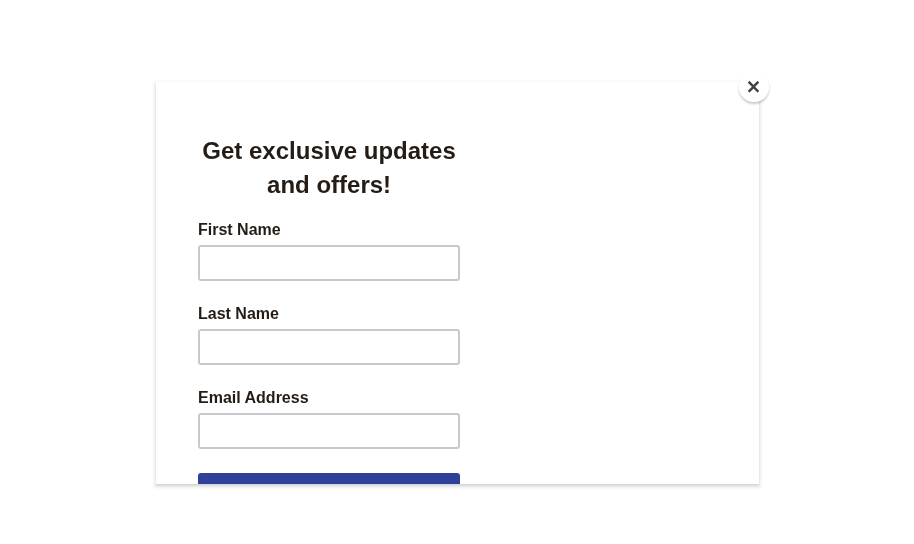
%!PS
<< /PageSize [914 544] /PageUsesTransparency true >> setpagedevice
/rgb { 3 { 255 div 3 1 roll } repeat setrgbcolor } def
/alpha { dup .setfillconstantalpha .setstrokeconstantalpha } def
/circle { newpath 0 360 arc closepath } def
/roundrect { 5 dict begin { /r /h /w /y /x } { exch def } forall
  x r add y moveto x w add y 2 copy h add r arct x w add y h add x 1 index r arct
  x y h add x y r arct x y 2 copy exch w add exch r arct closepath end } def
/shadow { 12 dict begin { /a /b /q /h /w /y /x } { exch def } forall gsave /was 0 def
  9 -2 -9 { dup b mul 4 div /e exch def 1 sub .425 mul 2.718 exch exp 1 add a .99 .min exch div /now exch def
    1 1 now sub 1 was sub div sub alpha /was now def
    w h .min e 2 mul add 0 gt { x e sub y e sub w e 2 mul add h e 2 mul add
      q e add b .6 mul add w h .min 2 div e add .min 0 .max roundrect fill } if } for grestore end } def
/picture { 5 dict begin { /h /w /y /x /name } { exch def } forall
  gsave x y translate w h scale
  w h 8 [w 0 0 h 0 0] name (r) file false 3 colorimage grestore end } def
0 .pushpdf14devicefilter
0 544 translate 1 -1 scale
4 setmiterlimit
255 255 255 rgb
0 0 914 544 rectfill
0 0 0 rgb
739 74 30 30 15 1 0.2 shadow
gsave
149 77 moveto 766 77 lineto 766 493 lineto 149 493 lineto closepath 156 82 moveto 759 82 lineto 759 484 lineto 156 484 lineto closepath eoclip newpath
156 84 603 402 0 2 0.2 shadow
grestore
255 255 255 rgb
754 87 15 circle fill
65 65 65 rgb
757.5 81 moveto 759 82.5 lineto 749.5 92.5 lineto 748 91 lineto closepath fill
748 82.5 moveto 749.5 81 lineto 759 91 lineto 757.5 92.5 lineto closepath fill
(img/1.rgb) 198 141 262 343 picture
.poppdf14devicefilter showpage
